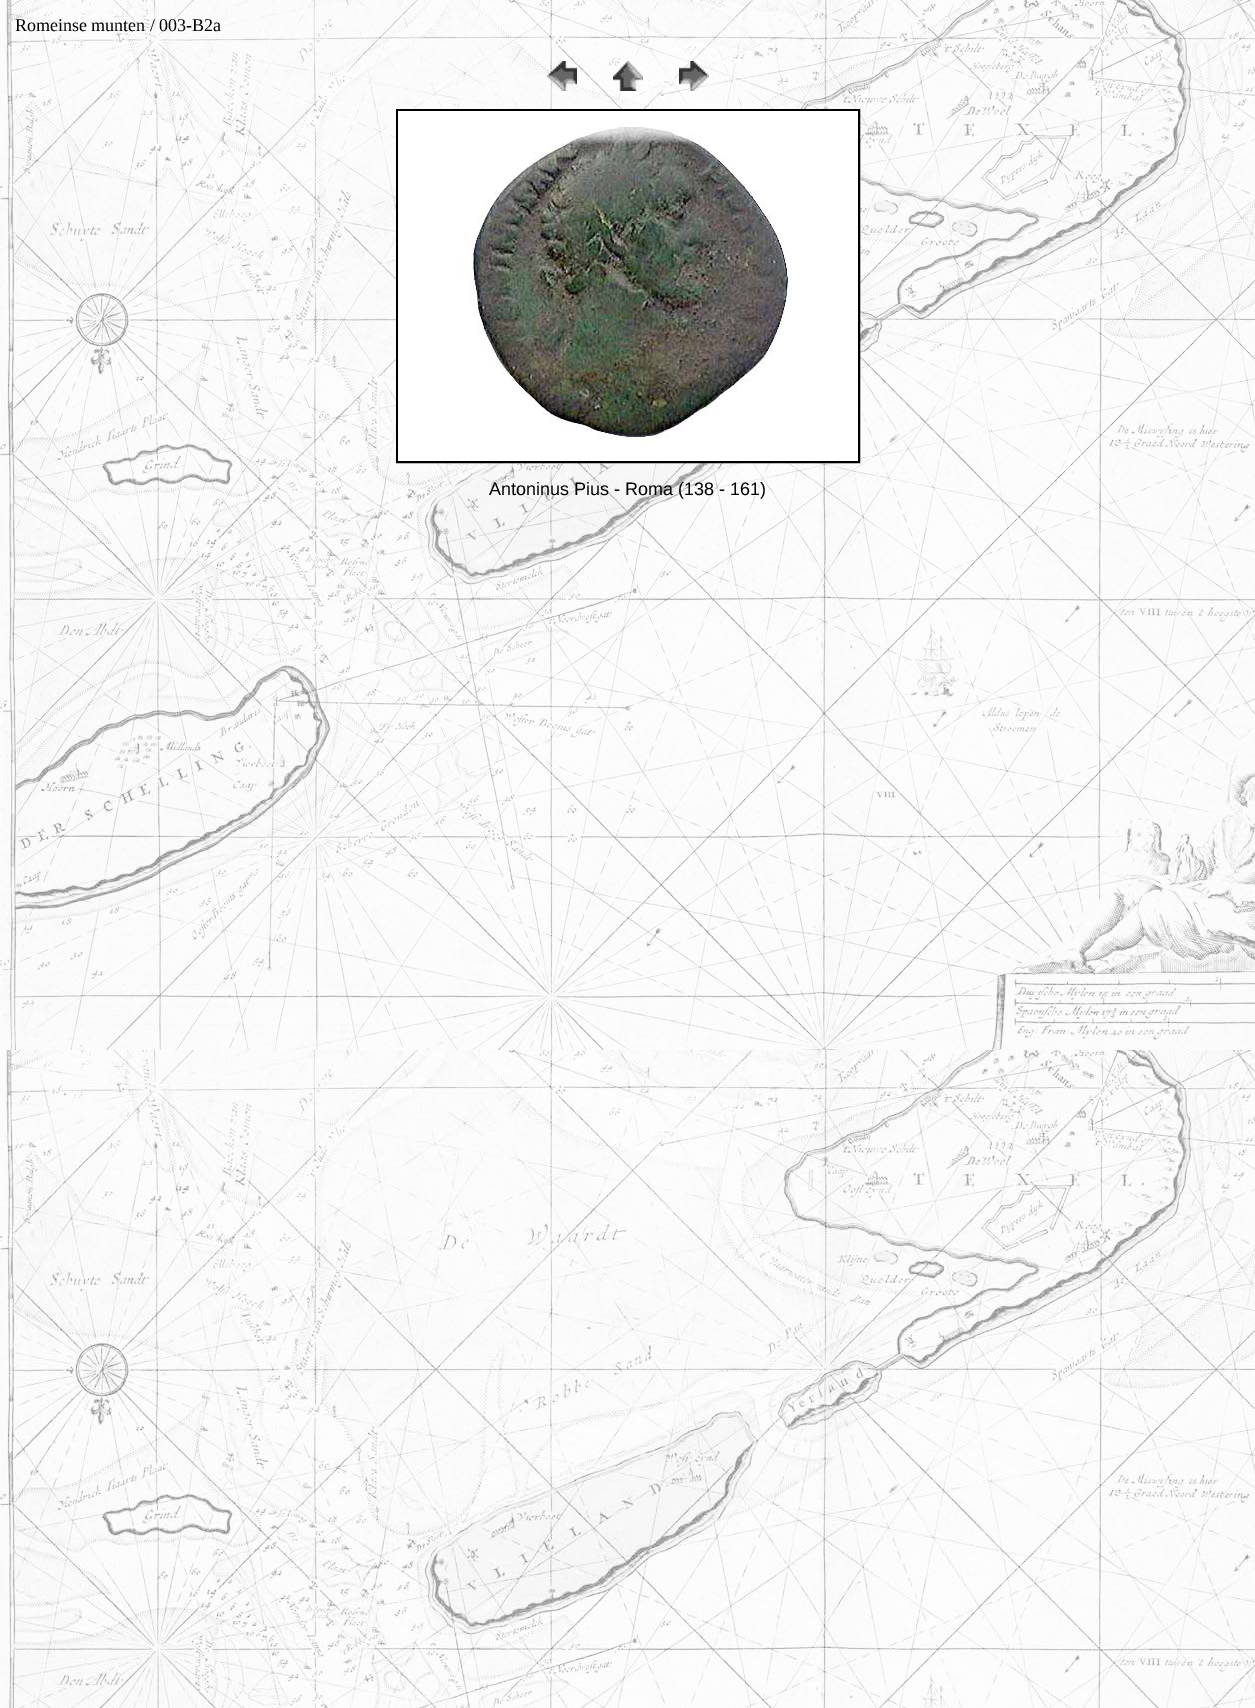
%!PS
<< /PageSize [1255 1708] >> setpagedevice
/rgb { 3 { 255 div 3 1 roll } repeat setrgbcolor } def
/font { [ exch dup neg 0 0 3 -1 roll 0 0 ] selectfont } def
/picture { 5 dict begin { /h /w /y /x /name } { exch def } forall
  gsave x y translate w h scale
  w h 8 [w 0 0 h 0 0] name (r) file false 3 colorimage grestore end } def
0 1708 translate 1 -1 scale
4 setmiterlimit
255 255 255 rgb
0 0 1255 1708 rectfill
(img/1.rgb) 0 0 1255 1708 picture
(img/2.rgb) 547 61 30 30 picture
(img/3.rgb) 613 61 30 30 picture
(img/4.rgb) 679 61 30 30 picture
0 0 0 rgb
2 setlinewidth
397 110 462 352 rectstroke
(img/5.rgb) 398 111 460 350 picture
/LiberationSerif-Regular 18 font
15 31 moveto (Romeinse munten / 003-B2a) show
/LiberationSans-Regular 18 font
489 495 moveto (Antoninus Pius - Roma \(138 - 161\)) show
showpage
